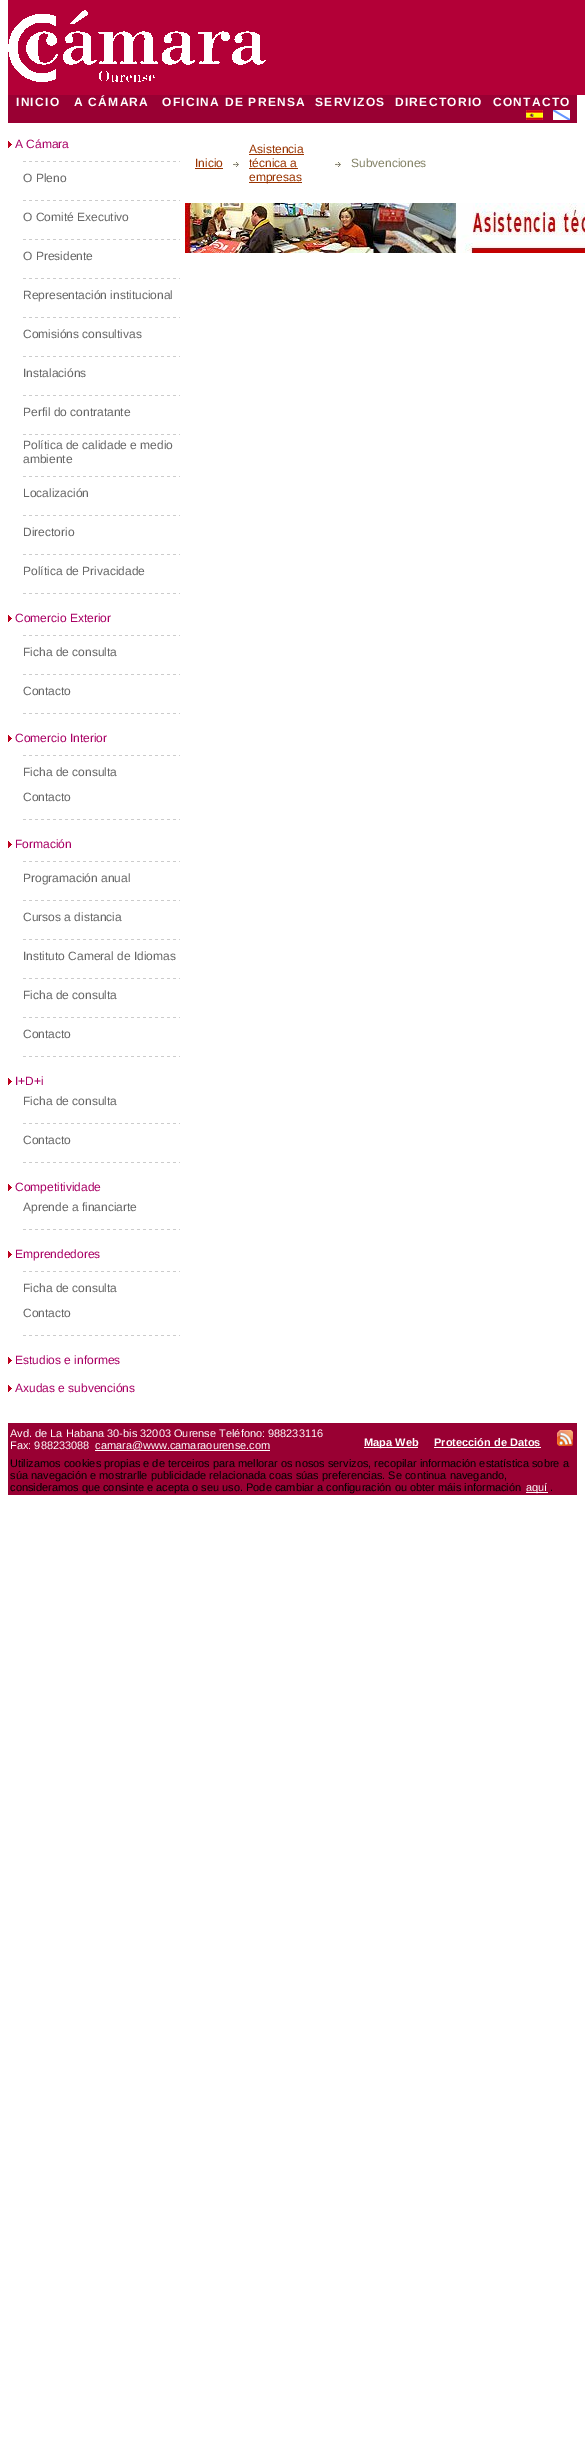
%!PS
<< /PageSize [585 2449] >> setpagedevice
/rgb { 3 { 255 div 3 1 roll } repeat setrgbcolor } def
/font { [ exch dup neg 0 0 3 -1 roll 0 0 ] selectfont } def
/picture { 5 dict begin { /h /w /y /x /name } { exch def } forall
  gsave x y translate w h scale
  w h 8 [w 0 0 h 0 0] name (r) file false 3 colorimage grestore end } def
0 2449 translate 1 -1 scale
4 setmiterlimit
255 255 255 rgb
0 0 585 2449 rectfill
179 0 55 rgb
8 0 577 95 rectfill
(img/1.rgb) 8 10 258 72 picture
153 0 51 rgb
8 95 569 28 rectfill
(img/2.rgb) 526 110 17 10 picture
(img/3.rgb) 553 110 17 10 picture
(img/4.rgb) 8 141 4 7 picture
(img/5.rgb) 23 161 157 1 picture
(img/5.rgb) 23 200 157 1 picture
(img/5.rgb) 23 239 157 1 picture
(img/5.rgb) 23 278 157 1 picture
(img/5.rgb) 23 317 157 1 picture
(img/5.rgb) 23 356 157 1 picture
(img/5.rgb) 23 395 157 1 picture
(img/5.rgb) 23 434 157 1 picture
(img/5.rgb) 23 476 157 1 picture
(img/5.rgb) 23 515 157 1 picture
(img/5.rgb) 23 554 157 1 picture
(img/5.rgb) 23 593 157 1 picture
(img/4.rgb) 8 615 4 7 picture
(img/5.rgb) 23 635 157 1 picture
(img/5.rgb) 23 674 157 1 picture
(img/5.rgb) 23 713 157 1 picture
(img/4.rgb) 8 735 4 7 picture
(img/5.rgb) 23 755 157 1 picture
(img/5.rgb) 23 819 157 1 picture
(img/4.rgb) 8 841 4 7 picture
(img/5.rgb) 23 861 157 1 picture
(img/5.rgb) 23 900 157 1 picture
(img/5.rgb) 23 939 157 1 picture
(img/5.rgb) 23 978 157 1 picture
(img/5.rgb) 23 1017 157 1 picture
(img/5.rgb) 23 1056 157 1 picture
(img/4.rgb) 8 1078 4 7 picture
(img/5.rgb) 23 1123 157 1 picture
(img/5.rgb) 23 1162 157 1 picture
(img/4.rgb) 8 1184 4 7 picture
(img/5.rgb) 23 1229 157 1 picture
(img/4.rgb) 8 1251 4 7 picture
(img/5.rgb) 23 1271 157 1 picture
(img/5.rgb) 23 1335 157 1 picture
(img/4.rgb) 8 1357 4 7 picture
(img/4.rgb) 8 1385 4 7 picture
153 51 0 rgb
195 168 28 1 rectfill
(img/6.rgb) 233 162 6 5 picture
[
  [249 154 55 1 153 51 0]
  [249 168 49 1 153 51 0]
  [249 182 53 1 153 51 0]
] { aload pop rgb rectfill } forall
(img/6.rgb) 335 162 6 5 picture
(img/7.rgb) 185 203 400 50 picture
[
  [8 1423 569 72 153 0 51]
  [95 1450 175 1 255 255 255]
  [364 1447 54 1 255 255 255]
  [434 1447 107 1 255 255 255]
] { aload pop rgb rectfill } forall
(img/8.rgb) 557 1430 16 16 picture
526 1492 22 1 rectfill
/LiberationSans-Bold 12 font
16 106 moveto 1.25 0 (INICIO) ashow
74 106 moveto 1.25 0 (A CÁMARA) ashow
162 106 moveto 1.25 0 (OFICINA DE PRENSA) ashow
315 106 moveto 1.25 0 (SERVIZOS) ashow
395 106 moveto 1.25 0 (DIRECTORIO) ashow
493 106 moveto 1.25 0 (CONTACTO) ashow
/LiberationSans-Regular 12 font
169 0 100 rgb
15 148 moveto (A Cámara) show
102 102 102 rgb
[
  [(O Pleno) 23 182]
  [(O Comité Executivo) 23 221]
  [(O Presidente) 23 260]
  [(Representación institucional) 23 299]
  [(Comisións consultivas) 23 338]
  [(Instalacións) 23 377]
  [(Perfil do contratante) 23 416]
  [(Política de calidade e medio) 23 449]
  [(ambiente) 23 463]
  [(Localización) 23 497]
  [(Directorio) 23 536]
  [(Política de Privacidade) 23 575]
] { aload pop moveto show } forall
169 0 100 rgb
15 622 moveto (Comercio Exterior) show
102 102 102 rgb
23 656 moveto (Ficha de consulta) show
23 695 moveto (Contacto) show
169 0 100 rgb
15 742 moveto (Comercio Interior) show
102 102 102 rgb
23 776 moveto (Ficha de consulta) show
23 801 moveto (Contacto) show
169 0 100 rgb
15 848 moveto (Formación) show
102 102 102 rgb
[
  [(Programación anual) 23 882]
  [(Cursos a distancia) 23 921]
  [(Instituto Cameral de Idiomas) 23 960]
  [(Ficha de consulta) 23 999]
  [(Contacto) 23 1038]
] { aload pop moveto show } forall
169 0 100 rgb
15 1085 moveto (I+D+i) show
102 102 102 rgb
23 1105 moveto (Ficha de consulta) show
23 1144 moveto (Contacto) show
169 0 100 rgb
15 1191 moveto (Competitividade) show
102 102 102 rgb
23 1211 moveto (Aprende a financiarte) show
169 0 100 rgb
15 1258 moveto (Emprendedores) show
102 102 102 rgb
23 1292 moveto (Ficha de consulta) show
23 1317 moveto (Contacto) show
169 0 100 rgb
15 1364 moveto (Estudios e informes) show
15 1392 moveto (Axudas e subvencións) show
153 51 0 rgb
[
  [(Inicio) 195 167]
  [(Asistencia) 249 153]
  [(técnica a) 249 167]
  [(empresas) 249 181]
] { aload pop moveto show } forall
132 131 103 rgb
351 167 moveto (Subvenciones) show
/LiberationSans-Regular 11 font
255 255 255 rgb
[
  [(Avd. de La Habana 30-bis 32003 Ourense Teléfono: 988233116) 10 1437]
  [(Fax: 988233088) 10 1449]
  [(camara@www.camaraourense.com) 95 1449]
] { aload pop moveto show } forall
153 0 51 rgb
99 1437 173 1 rectfill
/LiberationSans-Bold 11 font
255 255 255 rgb
364 1446 moveto (Mapa Web) show
434 1446 moveto (Protección de Datos) show
/LiberationSans-Regular 11 font
0 0 0 rgb
[
  [(Utilizamos cookies propias e de terceiros para mellorar os nosos servizos, recopilar información estatística sobre a) 10 1467]
  [(súa navegación e mostrarlle publicidade relacionada coas súas preferencias. Se continua navegando,) 10 1479]
  [(consideramos que consinte e acepta o seu uso. Pode cambiar a configuración ou obter máis información) 10 1491]
] { aload pop moveto show } forall
255 255 255 rgb
526 1491 moveto (aquí) show
0 0 0 rgb
550 1491 moveto (.) show
showpage
